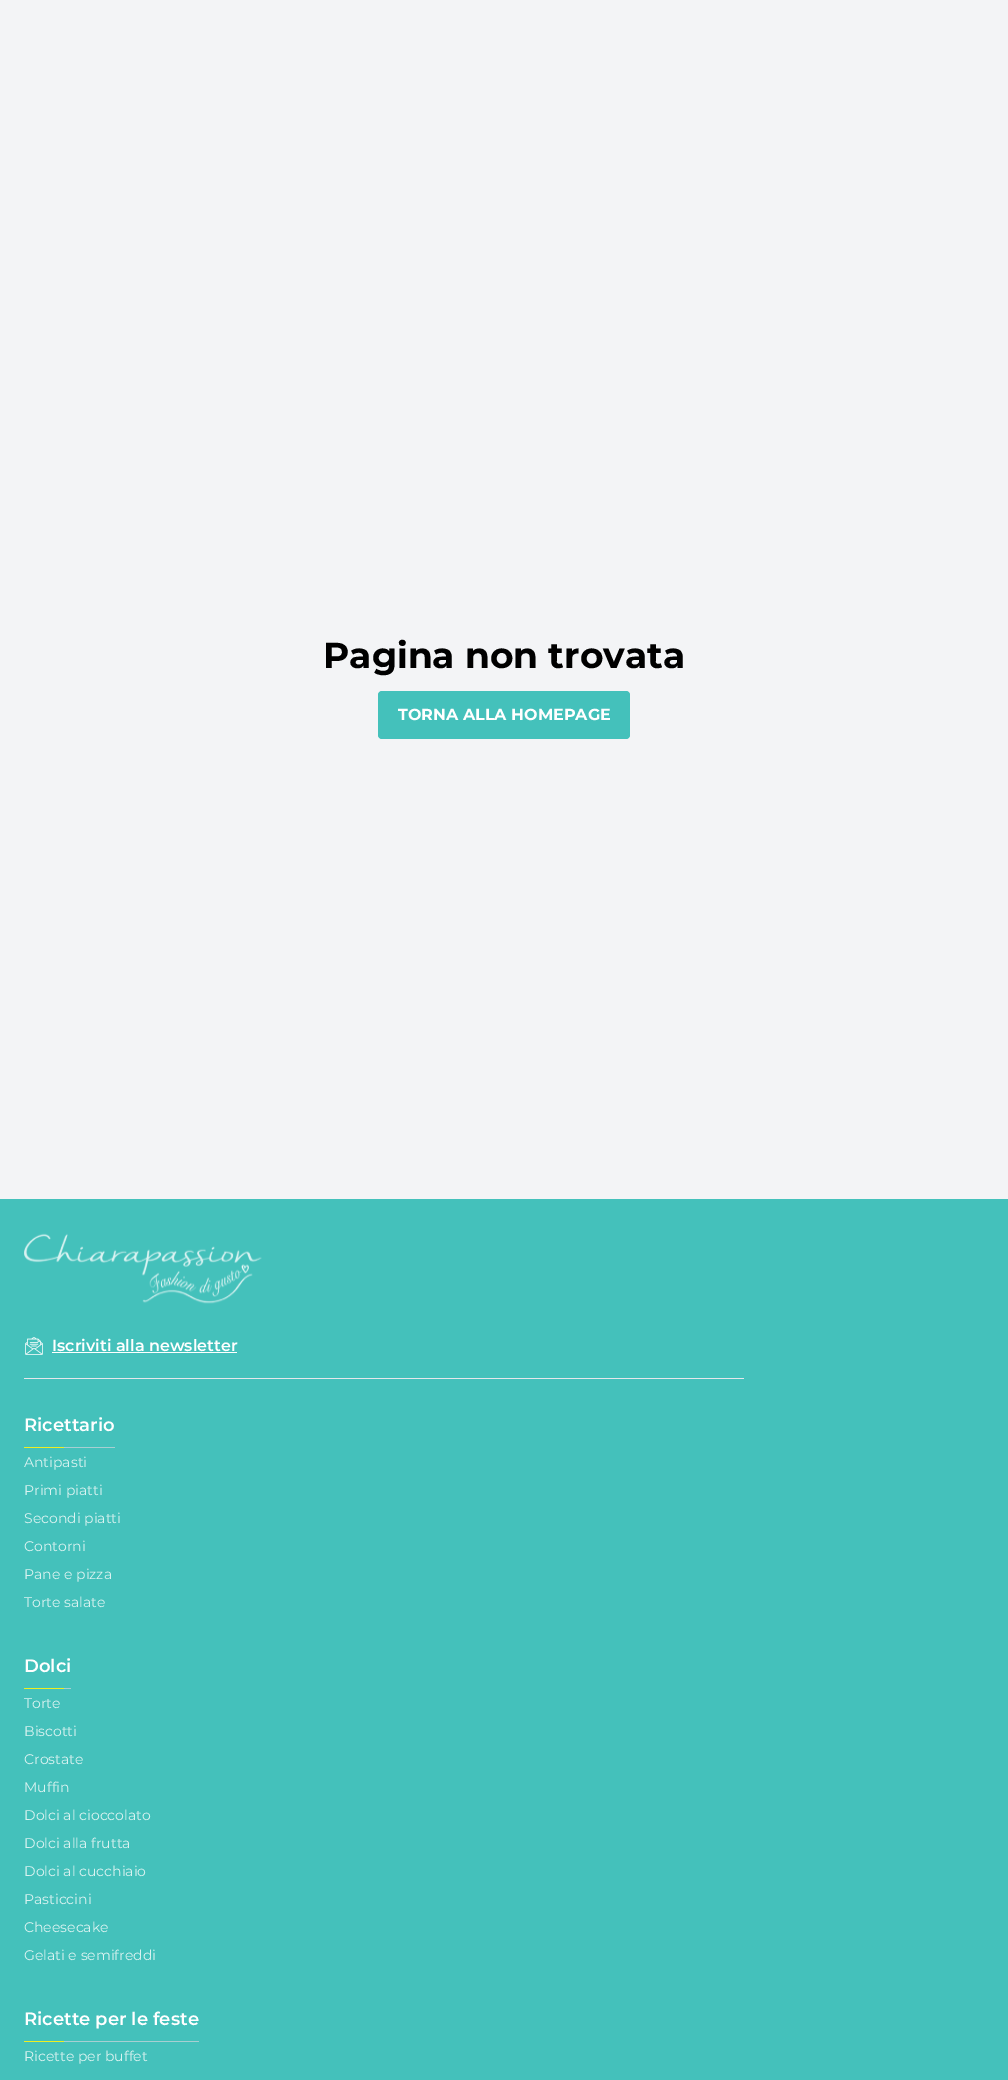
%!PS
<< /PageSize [1008 2080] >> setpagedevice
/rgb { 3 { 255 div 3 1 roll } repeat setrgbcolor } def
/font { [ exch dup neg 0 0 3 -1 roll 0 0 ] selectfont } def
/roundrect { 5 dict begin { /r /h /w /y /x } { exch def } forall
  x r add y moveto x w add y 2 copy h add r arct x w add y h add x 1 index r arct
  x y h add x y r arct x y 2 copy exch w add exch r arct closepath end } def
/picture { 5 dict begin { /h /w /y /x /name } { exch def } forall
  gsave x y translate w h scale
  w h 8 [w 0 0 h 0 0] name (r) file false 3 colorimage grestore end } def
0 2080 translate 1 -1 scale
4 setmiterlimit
68 193 187 rgb
0 0 1008 2080 rectfill
243 244 246 rgb
0 0 1008 1199 rectfill
68 193 187 rgb
378 691 252 48 4 roundrect fill
229 231 235 rgb
24 1378 720 1 rectfill
(img/1.rgb) 24 1233 238 71 picture
(img/2.rgb) 25 1337 18 18 picture
[
  [52 1352 185 1 255 255 255]
  [64 1447 51 1 167 207 209]
  [24 1447 40 1 238 238 34]
  [64 1688 7 1 167 207 209]
  [24 1688 40 1 238 238 34]
  [64 2041 135 1 167 207 209]
  [24 2041 40 1 238 238 34]
] { aload pop rgb rectfill } forall
/Montserrat-Bold 36 font
0 0 0 rgb
323 668 moveto (Pagina non trovata) show
/Montserrat-Bold 16 font
255 255 255 rgb
398 720 moveto (TORNA ALLA HOMEPAGE) show
/Montserrat-SemiBold 16 font
52 1351 moveto (Iscriviti alla newsletter) show
/Montserrat-SemiBold 18 font
24 1431 moveto (Ricettario) show
/Montserrat-Regular 14 font
218 243 241 rgb
[
  [(Antipasti) 24 1467]
  [(Primi piatti) 24 1495]
  [(Secondi piatti) 24 1523]
  [(Contorni) 24 1551]
  [(Pane e pizza) 24 1579]
  [(Torte salate) 24 1607]
] { aload pop moveto show } forall
/Montserrat-SemiBold 18 font
255 255 255 rgb
24 1672 moveto (Dolci) show
/Montserrat-Regular 14 font
218 243 241 rgb
[
  [(Torte) 24 1708]
  [(Biscotti) 24 1736]
  [(Crostate) 24 1764]
  [(Muffin) 24 1792]
  [(Dolci al cioccolato) 24 1820]
  [(Dolci alla frutta) 24 1848]
  [(Dolci al cucchiaio) 24 1876]
  [(Pasticcini) 24 1904]
  [(Cheesecake) 24 1932]
  [(Gelati e semifreddi) 24 1960]
] { aload pop moveto show } forall
/Montserrat-SemiBold 18 font
255 255 255 rgb
24 2025 moveto (Ricette per le feste) show
/Montserrat-Regular 14 font
218 243 241 rgb
24 2061 moveto (Ricette per buffet) show
showpage
